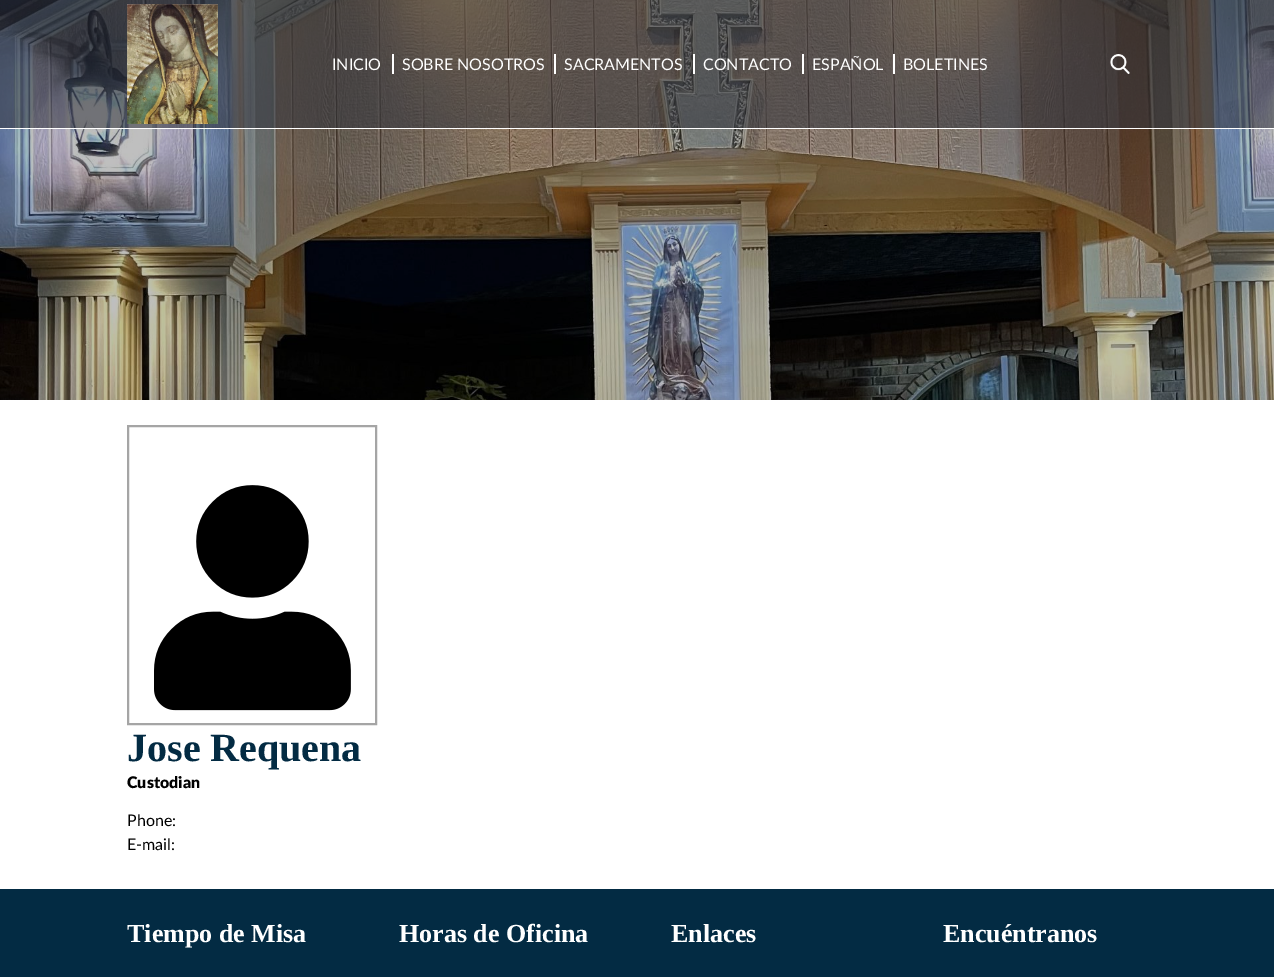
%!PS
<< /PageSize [1274 977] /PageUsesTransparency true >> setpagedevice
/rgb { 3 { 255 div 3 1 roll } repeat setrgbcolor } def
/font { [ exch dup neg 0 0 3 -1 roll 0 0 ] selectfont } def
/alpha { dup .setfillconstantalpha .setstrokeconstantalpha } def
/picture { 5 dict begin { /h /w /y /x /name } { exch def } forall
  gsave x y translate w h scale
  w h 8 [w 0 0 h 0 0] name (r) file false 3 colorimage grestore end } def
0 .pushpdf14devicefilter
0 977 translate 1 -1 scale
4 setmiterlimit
255 255 255 rgb
0 0 1274 977 rectfill
(img/3.rgb) 0 0 1274 400 picture
0.55 alpha
49 51 59 rgb
0 0 1274 128 rectfill
1 alpha
255 255 255 rgb
0 128 1274 1 rectfill
(img/1.rgb) 127 4 91 120 picture
[
  [392 54 2 20 255 255 255]
  [554 54 2 20 255 255 255]
  [693 54 2 20 255 255 255]
  [802 54 2 20 255 255 255]
  [893 54 2 20 255 255 255]
] { aload pop rgb rectfill } forall
(img/2.rgb) 1110 54 20 20 picture
165 165 165 rgb
2 setlinewidth
128 426 248 298 rectstroke
(img/4.rgb) 154 485 197 226 picture
3 43 67 rgb
0 889 1274 88 rectfill
/Lato-Regular 16 font
255 255 255 rgb
[
  [(INICIO) 332 70]
  [(SOBRE NOSOTROS) 402 70]
  [(SACRAMENTOS) 564 70]
  [(CONTACTO) 703 70]
  [(ESPAÑOL) 812 70]
  [(BOLETINES) 903 70]
] { aload pop moveto show } forall
/LiberationSerif-Bold 40 font
3 43 67 rgb
127 761 moveto (Jose Requena) show
/Lato-ExtraBold 16 font
0 0 0 rgb
127 788 moveto (Custodian) show
/Lato-Regular 16 font
127 826 moveto (Phone:) show
127 850 moveto (E-mail:) show
/LiberationSerif-Bold 26 font
255 255 255 rgb
[
  [(Tiempo de Misa) 127 942]
  [(Horas de Oficina) 399 942]
  [(Enlaces) 671 942]
  [(Encuéntranos) 943 942]
] { aload pop moveto show } forall
.poppdf14devicefilter showpage
